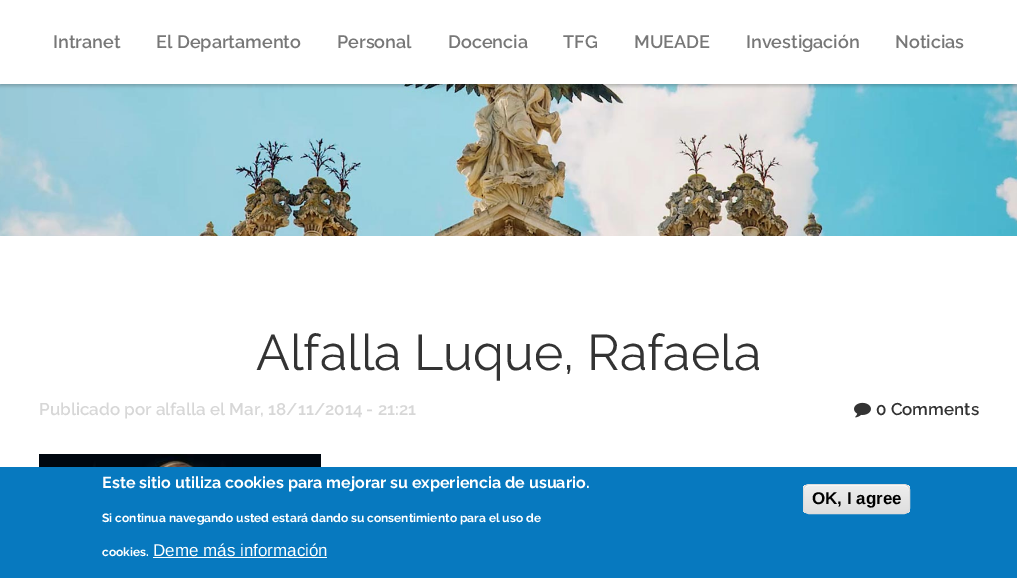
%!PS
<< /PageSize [1017 578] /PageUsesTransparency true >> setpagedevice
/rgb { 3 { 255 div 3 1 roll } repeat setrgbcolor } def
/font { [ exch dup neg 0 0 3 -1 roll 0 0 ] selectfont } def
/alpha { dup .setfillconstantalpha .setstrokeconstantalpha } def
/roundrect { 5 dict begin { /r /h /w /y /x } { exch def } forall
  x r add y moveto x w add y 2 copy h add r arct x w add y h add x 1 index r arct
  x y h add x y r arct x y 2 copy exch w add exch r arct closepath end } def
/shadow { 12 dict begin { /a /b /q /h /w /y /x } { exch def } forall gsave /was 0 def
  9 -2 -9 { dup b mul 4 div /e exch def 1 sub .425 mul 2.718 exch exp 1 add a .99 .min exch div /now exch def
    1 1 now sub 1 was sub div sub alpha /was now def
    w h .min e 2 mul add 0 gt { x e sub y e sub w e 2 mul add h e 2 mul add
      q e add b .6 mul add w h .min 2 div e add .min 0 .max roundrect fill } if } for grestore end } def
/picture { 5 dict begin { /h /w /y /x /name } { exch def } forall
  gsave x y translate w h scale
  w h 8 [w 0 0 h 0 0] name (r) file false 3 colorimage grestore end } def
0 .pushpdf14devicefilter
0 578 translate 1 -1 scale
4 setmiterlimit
255 255 255 rgb
0 0 1017 578 rectfill
(img/1.rgb) 0 84 1017 152 picture
0 0 0 rgb
0 2 1017 84 0 1.5 0.2 shadow
255 255 255 rgb
0 0 1017 84 rectfill
(img/2.rgb) 854 402 17 16 picture
(img/3.rgb) 39 454 282 13 picture
7 121 191 rgb
0 467 1017 111 rectfill
255 255 255 rgb
153 557 174 1 rectfill
gsave
803 484 107 30 6 roundrect clip newpath
gsave 803 485 moveto 910 485 lineto 910 513 lineto 803 513 lineto closepath clip newpath
<< /ShadingType 2 /ColorSpace /DeviceRGB /Coords [857 485 857 513] /Extend [true true] /Function << /FunctionType 3 /Domain [0 1] /Functions [<< /FunctionType 2 /Domain [0 1] /C0 [0.929 0.929 0.929] /C1 [0.929 0.929 0.929] /N 1 >> << /FunctionType 2 /Domain [0 1] /C0 [0.929 0.929 0.929] /C1 [0.875 0.875 0.875] /N 1 >>] /Bounds [0.05] /Encode [0 1 0 1] >> >> shfill grestore
grestore
809 486 moveto 904 486 lineto 907 486 909 488 909 491 curveto 909 481 893 485 888 485 curveto 825 485 lineto 820 485 804 481 804 491 curveto 804 488 806 486 809 486 curveto closepath fill
220 220 220 rgb
803.5 484.5 106 29 5.5 roundrect stroke
/Raleway-SemiBold 18 font
119 119 119 rgb
[
  [(Intranet) 53 48]
  [(El Departamento) 156 48]
  [(Personal) 337 48]
  [(Docencia) 448 48]
  [(TFG) 563 48]
  [(MUEADE) 634 48]
  [(Investigación) 746 48]
  [(Noticias) 895 48]
] { aload pop moveto show } forall
/Raleway-Regular 50 font
51 51 51 rgb
256 370 moveto (Alfalla Luque, Rafaela) show
/Raleway-SemiBold 17 font
215 215 215 rgb
39 415 moveto (Publicado por alfalla el Mar, 18/11/2014 - 21:21) show
51 51 51 rgb
876 415 moveto (0 Comments) show
/Raleway-Bold 16 font
255 255 255 rgb
102 488 moveto (Este sitio utiliza cookies para mejorar su experiencia de usuario.) show
/Raleway-Bold 12 font
102 522 moveto (Si continua navegando usted estará dando su consentimiento para el uso de) show
102 556 moveto (cookies.) show
/LiberationSans-Regular 17 font
153 556 moveto (Deme más información) show
/LiberationSans-Bold 17 font
0 0 0 rgb
812 504 moveto (OK, I agree) show
.poppdf14devicefilter showpage
